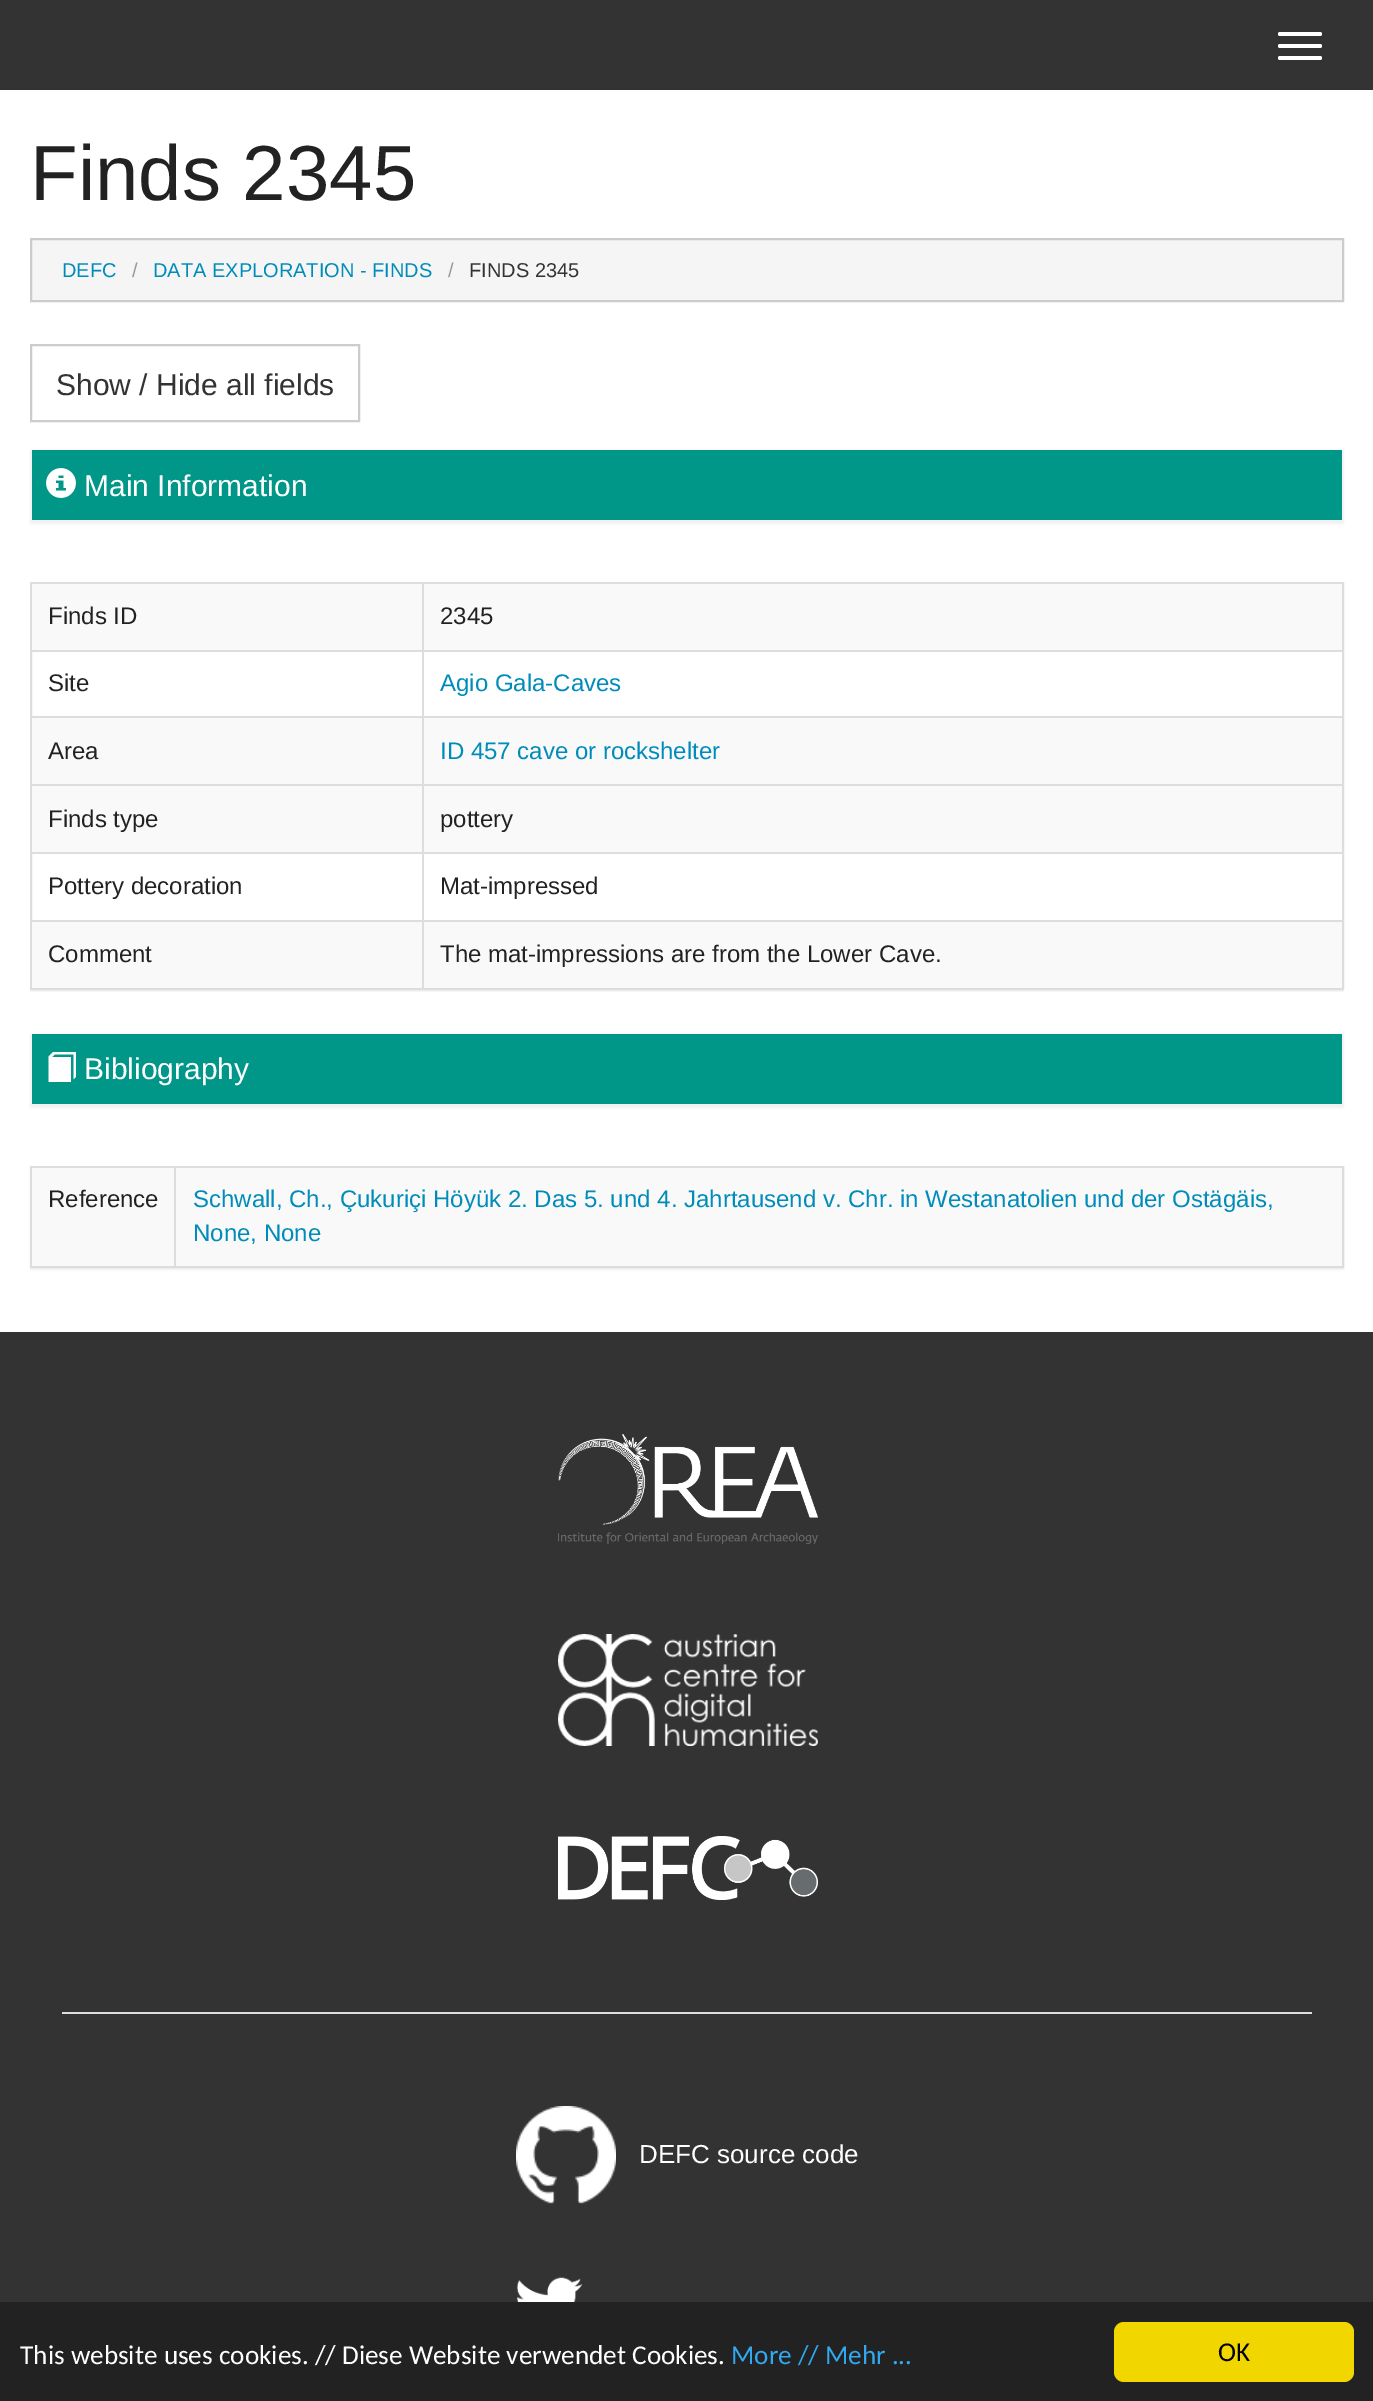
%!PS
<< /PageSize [1373 2401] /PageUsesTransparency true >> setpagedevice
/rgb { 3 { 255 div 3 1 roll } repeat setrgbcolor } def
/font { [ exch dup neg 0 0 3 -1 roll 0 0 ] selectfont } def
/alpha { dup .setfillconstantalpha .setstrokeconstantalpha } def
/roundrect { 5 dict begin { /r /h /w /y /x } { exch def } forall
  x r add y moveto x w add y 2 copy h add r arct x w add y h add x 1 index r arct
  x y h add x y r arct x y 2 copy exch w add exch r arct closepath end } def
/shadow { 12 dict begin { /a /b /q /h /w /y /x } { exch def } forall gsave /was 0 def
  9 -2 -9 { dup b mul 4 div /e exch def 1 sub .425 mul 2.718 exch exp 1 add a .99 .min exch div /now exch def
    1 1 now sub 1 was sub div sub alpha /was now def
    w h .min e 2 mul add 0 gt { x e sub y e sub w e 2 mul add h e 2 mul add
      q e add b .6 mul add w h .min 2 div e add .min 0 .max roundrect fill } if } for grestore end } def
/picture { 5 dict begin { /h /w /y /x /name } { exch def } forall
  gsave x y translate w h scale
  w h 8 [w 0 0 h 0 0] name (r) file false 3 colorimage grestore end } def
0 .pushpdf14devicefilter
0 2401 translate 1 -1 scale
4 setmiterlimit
255 255 255 rgb
0 0 1373 2401 rectfill
51 51 51 rgb
0 0 1373 90 rectfill
255 255 255 rgb
1278 32 44 4 2 roundrect fill
1278 44 44 4 2 roundrect fill
1278 56 44 4 2 roundrect fill
245 245 245 rgb
31 239 moveto 1343 239 lineto 1343 301 lineto 31 301 lineto closepath gsave fill grestore
204 204 204 rgb
2 setlinewidth
stroke
31 345 328 76 rectstroke
0 0 0 rgb
30 450 1314 74 0 1 0.05 shadow
0 150 136 rgb
32 450 1310 70 rectfill
(img/1.rgb) 46 468 30 30 picture
gsave
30 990 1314 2 rectclip
0 0 0 rgb
30 584 1314 408 0 1 0.05 shadow
grestore
221 221 221 rgb
31 583 1312 406 rectstroke
[
  [32 584 1310 66 249 249 249]
  [422 650 922 2 221 221 221]
  [422 716 922 2 221 221 221]
  [32 718 1310 66 249 249 249]
  [422 784 922 2 221 221 221]
  [32 786 1310 66 249 249 249]
  [422 852 922 2 221 221 221]
  [422 920 922 2 221 221 221]
  [32 922 1310 66 249 249 249]
  [422 920 2 68 221 221 221]
  [32 920 392 2 221 221 221]
  [422 852 2 70 221 221 221]
  [32 852 392 2 221 221 221]
  [422 784 2 70 221 221 221]
  [32 784 392 2 221 221 221]
  [422 716 2 70 221 221 221]
  [32 716 392 2 221 221 221]
  [422 650 2 68 221 221 221]
  [32 650 392 2 221 221 221]
  [422 582 2 70 221 221 221]
] { aload pop rgb rectfill } forall
0 0 0 rgb
30 1034 1314 74 0 1 0.05 shadow
0 150 136 rgb
32 1034 1310 70 rectfill
(img/2.rgb) 48 1052 28 30 picture
0 0 0 rgb
30 1168 1314 102 0 1 0.05 shadow
221 221 221 rgb
31 1167 1312 100 rectstroke
[
  [32 1168 1310 98 249 249 249]
  [174 1166 2 102 221 221 221]
  [0 1332 1373 970 51 51 51]
] { aload pop rgb rectfill } forall
(img/3.rgb) 558 1434 260 110 picture
(img/4.rgb) 558 1634 260 112 picture
(img/5.rgb) 558 1836 260 64 picture
221 221 221 rgb
62 2012 1250 2 rectfill
(img/6.rgb) 516 2106 100 98 picture
(img/7.rgb) 516 2277 67 25 picture
34 34 34 rgb
0 2302 1373 99 rectfill
241 214 0 rgb
1114 2322 240 60 10 roundrect fill
/LiberationSans-Regular 78 font
34 34 34 rgb
30 200 moveto (Finds 2345) show
/LiberationSans-Regular 20 font
0 140 186 rgb
62 277 moveto (DEFC) show
153 153 153 rgb
132 277 moveto (/) show
0 140 186 rgb
153 277 moveto (DATA EXPLORATION - FINDS) show
153 153 153 rgb
448 277 moveto (/) show
51 51 51 rgb
469 277 moveto (FINDS 2345) show
/LiberationSans-Regular 30 font
56 395 moveto (Show / Hide all fields) show
255 255 255 rgb
84 496 moveto (Main Information) show
/LiberationSans-Regular 24 font
34 34 34 rgb
[
  [(Finds ID) 48 624]
  [(2345) 440 624]
  [(Site) 48 691]
] { aload pop moveto show } forall
0 140 186 rgb
440 691 moveto (Agio Gala-Caves) show
34 34 34 rgb
48 759 moveto (Area) show
0 140 186 rgb
440 759 moveto (ID 457 cave or rockshelter) show
34 34 34 rgb
[
  [(Finds type) 48 827]
  [(pottery) 440 827]
  [(Pottery decoration) 48 894]
  [(Mat-impressed) 440 894]
  [(Comment) 48 962]
  [(The mat-impressions are from the Lower Cave.) 440 962]
] { aload pop moveto show } forall
/LiberationSans-Regular 30 font
255 255 255 rgb
84 1079 moveto (Bibliography) show
/LiberationSans-Regular 24 font
34 34 34 rgb
48 1207 moveto (Reference) show
0 140 186 rgb
193 1207 moveto (Schwall, Ch., Çukuriçi Höyük 2. Das 5. und 4. Jahrtausend v. Chr. in Westanatolien und der Ostägäis,) show
193 1241 moveto (None, None) show
/LiberationSans-Regular 26 font
255 255 255 rgb
639 2163 moveto (DEFC source code) show
/Carlito-Regular 27.2 font
20 2364 moveto (This website uses cookies. // Diese Website verwendet Cookies.) show
49 168 240 rgb
731 2364 moveto (More // Mehr ...) show
0 0 0 rgb
1218 2361 moveto (OK) show
.poppdf14devicefilter showpage
